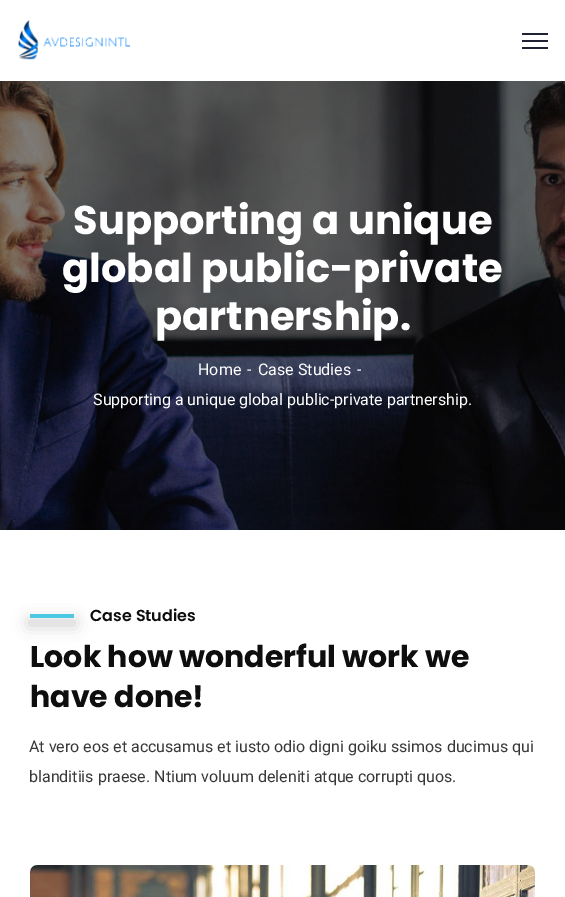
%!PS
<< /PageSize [565 897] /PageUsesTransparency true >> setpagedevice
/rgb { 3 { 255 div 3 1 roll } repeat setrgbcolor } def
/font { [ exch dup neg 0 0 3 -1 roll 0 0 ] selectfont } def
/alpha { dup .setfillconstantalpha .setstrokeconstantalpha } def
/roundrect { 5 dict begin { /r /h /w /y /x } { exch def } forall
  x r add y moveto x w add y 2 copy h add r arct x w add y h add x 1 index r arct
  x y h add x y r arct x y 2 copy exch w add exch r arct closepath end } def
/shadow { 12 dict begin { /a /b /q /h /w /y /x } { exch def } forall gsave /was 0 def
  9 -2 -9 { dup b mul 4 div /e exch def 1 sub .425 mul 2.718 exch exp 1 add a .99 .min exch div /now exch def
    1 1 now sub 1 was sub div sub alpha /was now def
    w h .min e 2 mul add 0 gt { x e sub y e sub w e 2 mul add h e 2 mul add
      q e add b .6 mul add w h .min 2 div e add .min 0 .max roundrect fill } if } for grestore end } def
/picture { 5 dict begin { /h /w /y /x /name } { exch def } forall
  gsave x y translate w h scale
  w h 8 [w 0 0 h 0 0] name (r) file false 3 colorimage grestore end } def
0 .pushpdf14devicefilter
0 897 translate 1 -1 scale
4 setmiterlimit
255 255 255 rgb
0 0 565 897 rectfill
(img/1.rgb) 18 20 113 40 picture
[
  [522 33 26 2 31 34 51]
  [522 40 26 2 31 34 51]
  [522 47 26 2 31 34 51]
] { aload pop rgb rectfill } forall
(img/2.rgb) 0 81 565 449 picture
12 12 12 rgb
30 621 44 4 0 8 0.22 shadow
77 200 227 rgb
30 614 44 4 rectfill
(img/3.rgb) 30 865 505 32 picture
/Poppins-Bold 40 font
255 255 255 rgb
[
  [(Supporting a unique) 73 234]
  [(global public-private) 62 282]
  [(partnership.) 155 330]
] { aload pop moveto show } forall
/Roboto-Regular 16 font
[
  [(Home) 198 375]
  [(-) 247 375]
  [(Case Studies) 258 375]
  [(-) 357 375]
  [(Supporting a unique global public-private partnership.) 93 405]
] { aload pop moveto show } forall
/Poppins-SemiBold 16 font
14 14 14 rgb
90 621 moveto (Case Studies) show
/Poppins-Bold 30 font
30 667 moveto (Look how wonderful work we) show
30 707 moveto (have done!) show
/Roboto-Regular 16 font
56 56 56 rgb
29 752 moveto (At vero eos et accusamus et iusto odio digni goiku ssimos ducimus qui) show
29 782 moveto (blanditiis praese. Ntium voluum deleniti atque corrupti quos.) show
.poppdf14devicefilter showpage
